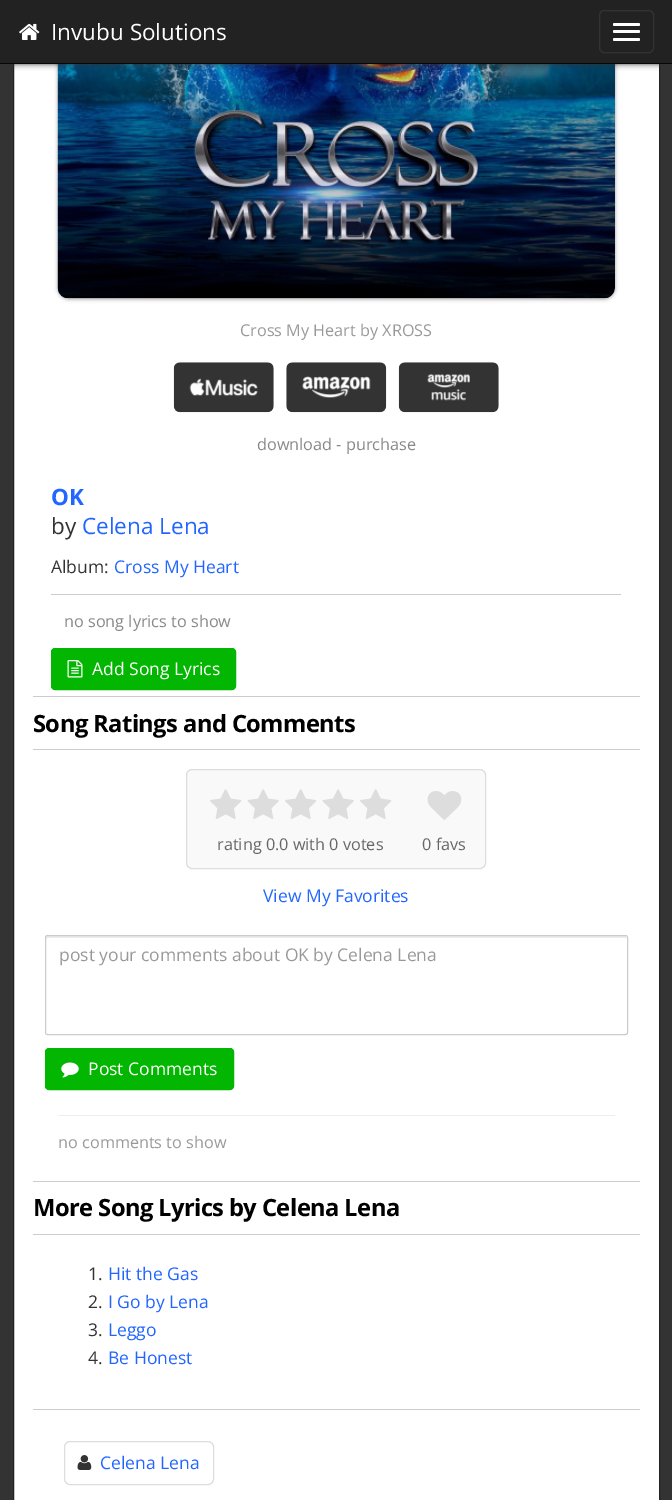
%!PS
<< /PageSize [672 1500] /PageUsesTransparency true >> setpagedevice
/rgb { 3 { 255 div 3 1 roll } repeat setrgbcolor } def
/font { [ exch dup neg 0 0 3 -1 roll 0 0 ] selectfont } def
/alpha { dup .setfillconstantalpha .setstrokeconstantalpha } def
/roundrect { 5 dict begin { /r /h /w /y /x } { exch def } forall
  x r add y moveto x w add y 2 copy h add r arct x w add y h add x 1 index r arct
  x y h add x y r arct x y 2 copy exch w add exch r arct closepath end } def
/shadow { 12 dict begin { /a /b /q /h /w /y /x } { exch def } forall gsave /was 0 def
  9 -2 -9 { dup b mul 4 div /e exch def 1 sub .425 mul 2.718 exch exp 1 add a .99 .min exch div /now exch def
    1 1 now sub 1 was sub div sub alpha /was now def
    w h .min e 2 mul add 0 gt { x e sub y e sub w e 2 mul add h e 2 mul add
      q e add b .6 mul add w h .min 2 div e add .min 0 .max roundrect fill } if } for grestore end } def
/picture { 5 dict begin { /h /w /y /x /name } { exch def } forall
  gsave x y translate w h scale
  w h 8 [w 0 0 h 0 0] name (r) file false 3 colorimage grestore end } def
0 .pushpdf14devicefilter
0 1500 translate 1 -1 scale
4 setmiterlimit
51 51 51 rgb
0 0 672 1500 rectfill
255 255 255 rgb
14 64 645 1436 rectfill
34 34 34 rgb
13.5 -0.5 646 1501 rectstroke
153 153 153 rgb
58 -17 557 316 11 2 1 shadow
(img/2.rgb) 57 64 558 235 picture
51 51 51 rgb
6 13 660 51 0 3 1 shadow
34 34 34 rgb
0 0 672 63 rectfill
8 8 8 rgb
0 63 672 1 rectfill
(img/1.rgb) 19 23 21 17 picture
51 51 51 rgb
599.5 10.5 54 42 4.5 roundrect stroke
255 255 255 rgb
613 23 27 3 1.5 roundrect fill
613 30 27 3 1.5 roundrect fill
613 38 27 3 1.5 roundrect fill
(img/3.rgb) 173 362 101 51 picture
(img/4.rgb) 286 362 101 51 picture
(img/5.rgb) 398 362 101 51 picture
204 204 204 rgb
51 594 570 1 rectfill
2 182 2 rgb
51.5 648.5 184 41 3.5 roundrect gsave fill grestore
stroke
(img/6.rgb) 67 660 16 18 picture
204 204 204 rgb
33 696 607 1 rectfill
33 749 607 1 rectfill
249 249 249 rgb
186.5 769.5 299 99 5.5 roundrect gsave fill grestore
221 221 221 rgb
stroke
(img/7.rgb) 210 789 32 30 picture
(img/8.rgb) 247 789 32 30 picture
(img/7.rgb) 285 789 32 30 picture
(img/8.rgb) 322 789 32 30 picture
(img/7.rgb) 360 789 32 30 picture
(img/9.rgb) 427 791 35 29 picture
236 236 236 rgb
48 938 moveto 625 938 lineto 626 938 626 938 626 939 curveto 626 937 lineto 626 936 626 936 625 936 curveto 47 936 lineto 46 936 46 936 46 937 curveto 46 939 lineto 46 938 47 938 48 938 curveto closepath fill
204 204 204 rgb
45.5 935.5 582 99 2 roundrect stroke
2 182 2 rgb
45.5 1048.5 188 41 3.5 roundrect gsave fill grestore
stroke
(img/10.rgb) 61 1062 18 16 picture
[
  [58 1115 557 1 238 238 238]
  [33 1181 607 1 204 204 204]
  [33 1234 607 1 204 204 204]
  [33 1409 607 1 204 204 204]
] { aload pop rgb rectfill } forall
221 221 221 rgb
64.5 1441.5 149 43 5.5 roundrect stroke
(img/11.rgb) 77 1455 15 15 picture
/OpenSans-Regular 22.5 font
255 255 255 rgb
51 40 moveto (Invubu Solutions) show
/OpenSans-Regular 16.25 font
153 153 153 rgb
240 336 moveto (Cross My Heart by XROSS) show
136 136 136 rgb
257 450 moveto (download - purchase) show
/OpenSans-Bold 22.5 font
34 102 255 rgb
51 505 moveto (OK) show
/OpenSans-Regular 22.5 font
51 51 51 rgb
51 534 moveto (by) show
34 102 255 rgb
82 534 moveto (Celena Lena) show
/OpenSans-Regular 17.5 font
51 51 51 rgb
51 573 moveto (Album:) show
34 102 255 rgb
114 573 moveto (Cross My Heart) show
/OpenSans-Regular 16.25 font
136 136 136 rgb
64 627 moveto (no song lyrics to show) show
/OpenSans-Regular 17.5 font
255 255 255 rgb
92 675 moveto (Add Song Lyrics) show
/OpenSans-Bold 23.75 font
0 0 0 rgb
33 732 moveto -0.6 0 (Song Ratings and Comments) ashow
/OpenSans-Regular 16.25 font
102 102 102 rgb
217 850 moveto (rating 0.0 with 0 votes) show
422 850 moveto (0 favs) show
/OpenSans-Regular 17.5 font
34 102 255 rgb
263 902 moveto (View My Favorites) show
153 153 153 rgb
59 961 moveto (post your comments about OK by Celena Lena) show
255 255 255 rgb
88 1075 moveto (Post Comments) show
/OpenSans-Regular 16.25 font
153 153 153 rgb
58 1148 moveto (no comments to show) show
/OpenSans-Bold 23.75 font
0 0 0 rgb
33 1216 moveto -0.6 0 (More Song Lyrics by Celena Lena) ashow
/OpenSans-Regular 17.5 font
51 51 51 rgb
88 1280 moveto (1.) show
34 102 255 rgb
108 1280 moveto (Hit the Gas) show
51 51 51 rgb
88 1308 moveto (2.) show
34 102 255 rgb
108 1308 moveto (I Go by Lena) show
51 51 51 rgb
88 1336 moveto (3.) show
34 102 255 rgb
108 1336 moveto (Leggo) show
51 51 51 rgb
88 1364 moveto (4.) show
34 102 255 rgb
108 1364 moveto (Be Honest) show
100 1469 moveto (Celena Lena) show
.poppdf14devicefilter showpage
